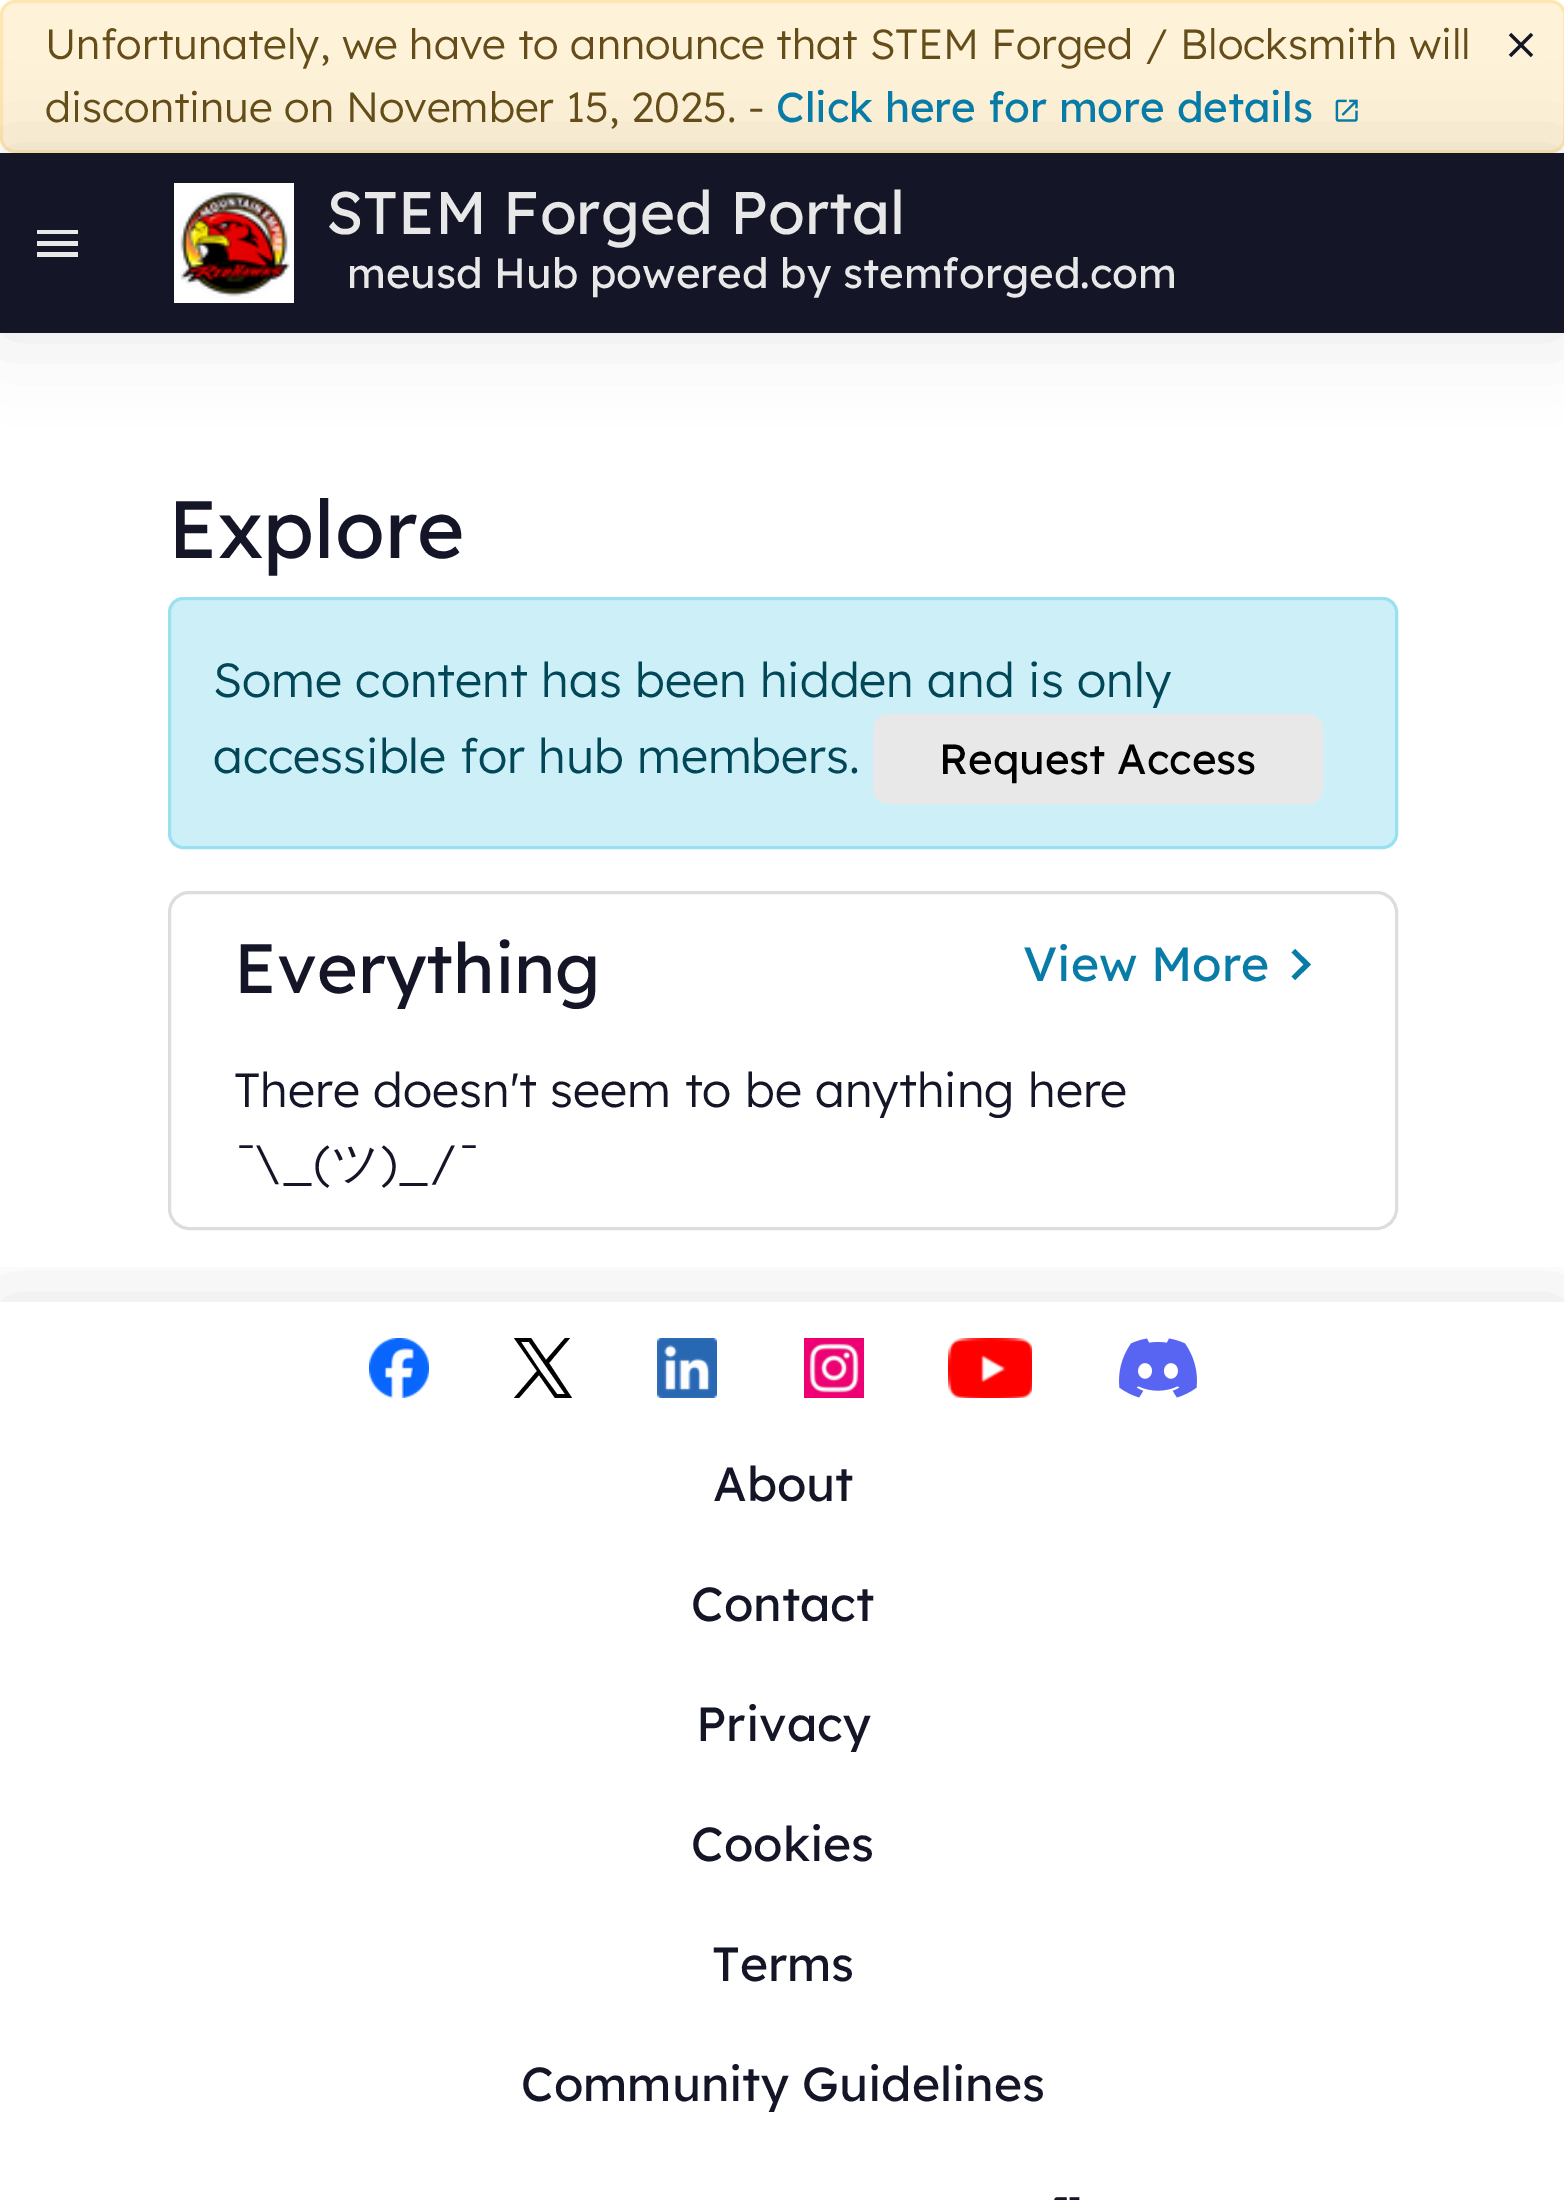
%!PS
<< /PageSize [1564 2200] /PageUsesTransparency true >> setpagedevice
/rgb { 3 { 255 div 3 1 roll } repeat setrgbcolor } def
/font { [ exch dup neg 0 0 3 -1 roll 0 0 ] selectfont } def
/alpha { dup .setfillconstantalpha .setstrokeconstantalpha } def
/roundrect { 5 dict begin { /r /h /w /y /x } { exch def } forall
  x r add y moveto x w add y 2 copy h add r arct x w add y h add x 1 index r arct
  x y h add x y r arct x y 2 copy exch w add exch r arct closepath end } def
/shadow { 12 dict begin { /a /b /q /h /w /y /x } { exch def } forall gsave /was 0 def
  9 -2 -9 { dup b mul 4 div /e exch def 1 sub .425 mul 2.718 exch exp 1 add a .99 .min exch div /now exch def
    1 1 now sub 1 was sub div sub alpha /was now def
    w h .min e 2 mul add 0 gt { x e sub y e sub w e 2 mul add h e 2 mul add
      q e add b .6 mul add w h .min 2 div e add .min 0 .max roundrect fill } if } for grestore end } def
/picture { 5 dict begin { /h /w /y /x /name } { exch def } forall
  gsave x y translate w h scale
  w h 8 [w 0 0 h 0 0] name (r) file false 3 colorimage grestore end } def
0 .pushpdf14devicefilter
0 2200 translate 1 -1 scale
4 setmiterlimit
255 255 255 rgb
0 0 1564 2200 rectfill
254 243 216 rgb
1.5 1.5 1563 150 13.5 roundrect gsave fill grestore
253 230 177 rgb
3 setlinewidth
stroke
(img/1.rgb) 1508 32 26 26 picture
(img/2.rgb) 1335 99 23 23 picture
20 22 39 rgb
0 153 1564 180 rectfill
gsave
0 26 moveto 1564 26 lineto 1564 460 lineto 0 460 lineto closepath 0 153 moveto 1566 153 lineto 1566 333 lineto 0 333 lineto closepath eoclip newpath
0 0 0 rgb
0 153 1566 180 0 42 0.1 shadow
grestore
232 232 233 rgb
37 230 moveto 78 230 lineto 78 234 lineto 37 234 lineto 37 230 lineto 37 241 moveto 78 241 lineto 78 246 lineto 37 246 lineto 37 241 lineto 37 252 moveto 78 252 lineto 78 257 lineto 37 257 lineto closepath fill
(img/3.rgb) 174 183 120 120 picture
205 240 248 rgb
169.5 598.5 1227 249 13.5 roundrect gsave fill grestore
155 224 241 rgb
stroke
232 232 233 rgb
874.5 715.5 447 87 13.5 roundrect gsave fill grestore
stroke
gsave
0 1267 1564 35 rectclip
0 0 0 rgb
0 1302 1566 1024 0 42 0.1 shadow
grestore
221 221 221 rgb
169.5 892.5 1227 336 19.5 roundrect stroke
8 124 167 rgb
1291.5 976.5 moveto 1303.5 964.5 lineto 1291.5 952.5 lineto 1295 949 lineto 1311 964.5 lineto 1295 980 lineto closepath fill
(img/4.rgb) 369 1338 60 60 picture
0 0 0 rgb
549 1363 moveto 570 1338 lineto 565 1338 lineto 546 1360 lineto 531 1338 lineto 514 1338 lineto 537 1371 lineto 514 1398 lineto 519 1398 lineto 539 1375 lineto 555 1398 lineto 572 1398 lineto closepath 541 1372 moveto 521 1342 lineto 529 1342 lineto 565 1394 lineto 557 1394 lineto closepath fill
(img/5.rgb) 657 1338 60 60 picture
(img/6.rgb) 804 1338 60 60 picture
(img/7.rgb) 948 1338 84 60 picture
(img/8.rgb) 1119 1338 78 60 picture
(img/9.rgb) 1054 2197 26 3 picture
/LexendDeca-Light 42 font
100 77 24 rgb
45 59 moveto (Unfortunately, we have to announce that STEM Forged / Blocksmith will) show
45 122 moveto (discontinue on November 15, 2025. -) show
/LexendDeca-Regular 42 font
8 124 167 rgb
776 122 moveto (Click here for more details) show
/LexendDeca-Regular 60 font
232 232 233 rgb
326 234 moveto (STEM Forged Portal) show
/LexendDeca-Regular 42 font
347 288 moveto (meusd Hub powered by stemforged.com) show
/LexendDeca-Regular 81 font
20 22 39 rgb
168 558 moveto (Explore) show
/LexendDeca-Light 48 font
2 71 88 rgb
213 697 moveto (Some content has been hidden and is only) show
213 773 moveto (accessible for hub members.) show
/LexendDeca-Regular 42 font
0 0 0 rgb
939 774 moveto (Request Access) show
/LexendDeca-Regular 69.75 font
20 22 39 rgb
234 993 moveto (Everything) show
/LexendDeca-Regular 48 font
8 124 167 rgb
1023 981 moveto (View More) show
/LexendDeca-Light 48 font
20 22 39 rgb
234 1107 moveto (There doesn't seem to be anything here) show
234 1179 moveto (¯\\_\() show
/WenQuanYiZenHei-Medium 48 font
331 1179 moveto (ツ) show
/LexendDeca-Light 48 font
380 1179 moveto (\)_/¯) show
/LexendDeca-Regular 48 font
[
  [(About) 713 1501]
  [(Contact) 691 1621]
  [(Privacy) 696 1741]
  [(Cookies) 691 1861]
  [(Terms) 712 1981]
  [(Community Guidelines) 521 2101]
] { aload pop moveto show } forall
.poppdf14devicefilter showpage
